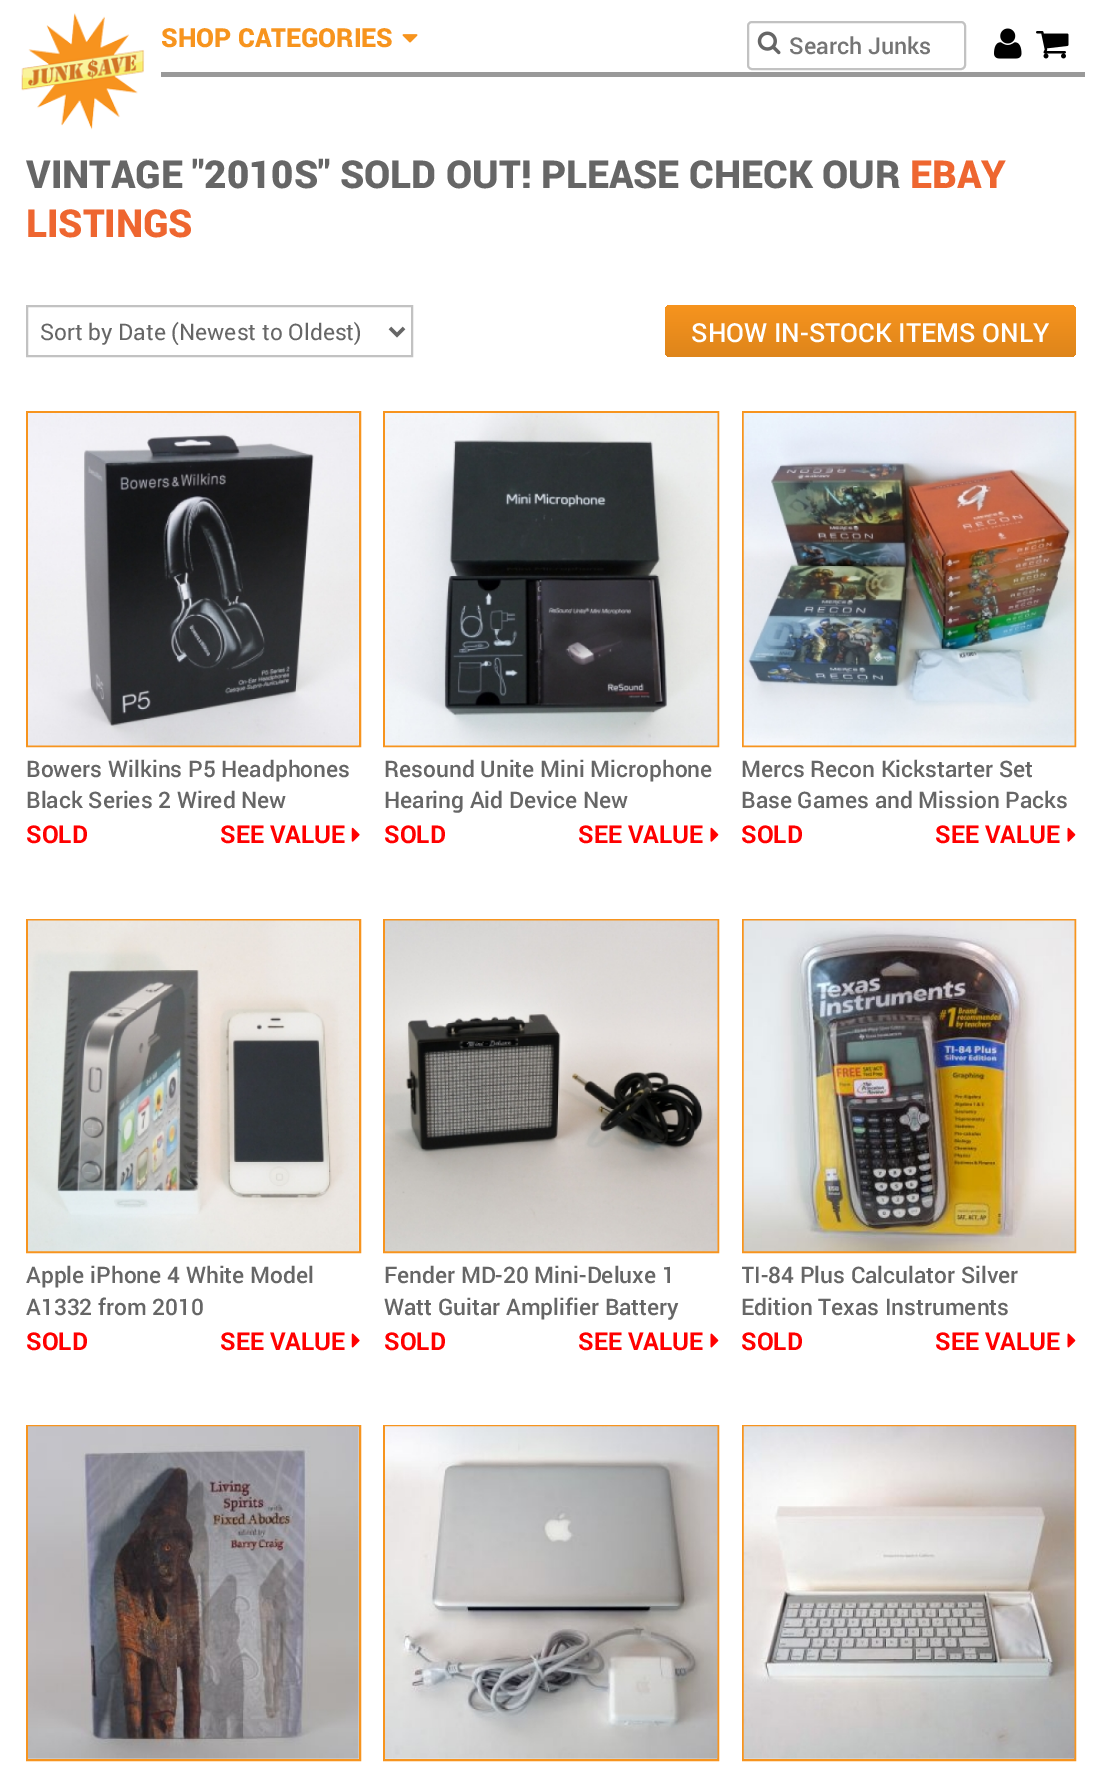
%!PS
<< /PageSize [1102 1772] >> setpagedevice
/rgb { 3 { 255 div 3 1 roll } repeat setrgbcolor } def
/font { [ exch dup neg 0 0 3 -1 roll 0 0 ] selectfont } def
/roundrect { 5 dict begin { /r /h /w /y /x } { exch def } forall
  x r add y moveto x w add y 2 copy h add r arct x w add y h add x 1 index r arct
  x y h add x y r arct x y 2 copy exch w add exch r arct closepath end } def
/picture { 5 dict begin { /h /w /y /x /name } { exch def } forall
  gsave x y translate w h scale
  w h 8 [w 0 0 h 0 0] name (r) file false 3 colorimage grestore end } def
0 1772 translate 1 -1 scale
4 setmiterlimit
255 255 255 rgb
0 0 1102 1772 rectfill
(img/1.rgb) 21 13 124 117 picture
153 153 153 rgb
161 72 924 5 rectfill
(img/2.rgb) 402 34 16 9 picture
194 194 194 rgb
2 setlinewidth
748 22 217 47 4 roundrect stroke
(img/3.rgb) 757 31 24 24 picture
(img/4.rgb) 994 28 28 31 picture
(img/5.rgb) 1036 31 33 28 picture
27 306 385 50 rectstroke
102 102 102 rgb
3.5 setlinewidth
390 328 moveto 397 335 lineto 404 328 lineto stroke
gsave 665 305 411 52 5 roundrect clip newpath
<< /ShadingType 2 /ColorSpace /DeviceRGB /Coords [871 305 871 357] /Extend [true true] /Function << /FunctionType 2 /Domain [0 1] /C0 [0.969 0.58 0.118] /C1 [0.871 0.522 0.106] /N 1 >> >> shfill grestore
247 148 30 rgb
2 setlinewidth
27 412 333 334 rectstroke
(img/6.rgb) 28 413 331 333 picture
(img/7.rgb) 351 827 9 15 picture
384 412 334 334 rectstroke
(img/8.rgb) 385 413 333 333 picture
(img/9.rgb) 710 827 9 15 picture
743 412 332 334 rectstroke
(img/10.rgb) 743 413 332 333 picture
(img/9.rgb) 1067 827 9 15 picture
27 920 333 332 rectstroke
(img/11.rgb) 28 920 331 332 picture
(img/12.rgb) 351 1333 9 15 picture
384 920 334 332 rectstroke
(img/13.rgb) 385 920 333 332 picture
(img/14.rgb) 710 1333 9 15 picture
743 920 332 332 rectstroke
(img/15.rgb) 743 920 332 332 picture
(img/14.rgb) 1067 1333 9 15 picture
27 1426 333 334 rectstroke
(img/16.rgb) 28 1426 331 333 picture
384 1426 334 334 rectstroke
(img/17.rgb) 385 1426 333 333 picture
743 1426 332 334 rectstroke
(img/18.rgb) 743 1426 332 333 picture
/Roboto-Black 26.25 font
161 47 moveto (SHOP CATEGORIES) show
/Roboto-Medium 23.25 font
117 117 117 rgb
789 54 moveto (Search Junks) show
/Roboto-Black 38.5 font
102 102 102 rgb
26 188 moveto (VINTAGE "2010S" SOLD OUT! PLEASE CHECK OUR) show
238 102 48 rgb
910 188 moveto (EBAY) show
26 237 moveto (LISTINGS) show
/roboto-Regular 22.75 font
102 102 102 rgb
40 340 moveto (Sort by Date \(Newest to Oldest\)) show
/Roboto-Medium 26.25 font
255 255 255 rgb
691 342 moveto (SHOW IN-STOCK ITEMS ONLY) show
/Roboto-Medium 22.75 font
102 102 102 rgb
26 777 moveto (Bowers Wilkins P5 Headphones) show
26 808 moveto (Black Series 2 Wired New) show
/roboto-Bold 24.5 font
255 0 0 rgb
26 843 moveto (SOLD) show
220 843 moveto (SEE VALUE) show
/Roboto-Medium 22.75 font
102 102 102 rgb
384 777 moveto (Resound Unite Mini Microphone) show
384 808 moveto (Hearing Aid Device New) show
/roboto-Bold 24.5 font
255 0 0 rgb
384 843 moveto (SOLD) show
578 843 moveto (SEE VALUE) show
/Roboto-Medium 22.75 font
102 102 102 rgb
741 777 moveto (Mercs Recon Kickstarter Set) show
741 808 moveto (Base Games and Mission Packs) show
/roboto-Bold 24.5 font
255 0 0 rgb
741 843 moveto (SOLD) show
935 843 moveto (SEE VALUE) show
/Roboto-Medium 22.75 font
102 102 102 rgb
26 1283 moveto (Apple iPhone 4 White Model) show
26 1315 moveto (A1332 from 2010) show
/roboto-Bold 24.5 font
255 0 0 rgb
26 1350 moveto (SOLD) show
220 1350 moveto (SEE VALUE) show
/Roboto-Medium 22.75 font
102 102 102 rgb
384 1283 moveto (Fender MD-20 Mini-Deluxe 1) show
384 1315 moveto (Watt Guitar Amplifier Battery) show
/roboto-Bold 24.5 font
255 0 0 rgb
384 1350 moveto (SOLD) show
578 1350 moveto (SEE VALUE) show
gsave
742 1253 334 68 rectclip
/Roboto-Medium 22.75 font
102 102 102 rgb
741 1283 moveto (TI-84 Plus Calculator Silver) show
grestore
/Roboto-Medium 22.75 font
102 102 102 rgb
741 1315 moveto (Edition Texas Instruments) show
/roboto-Bold 24.5 font
255 0 0 rgb
741 1350 moveto (SOLD) show
935 1350 moveto (SEE VALUE) show
showpage
